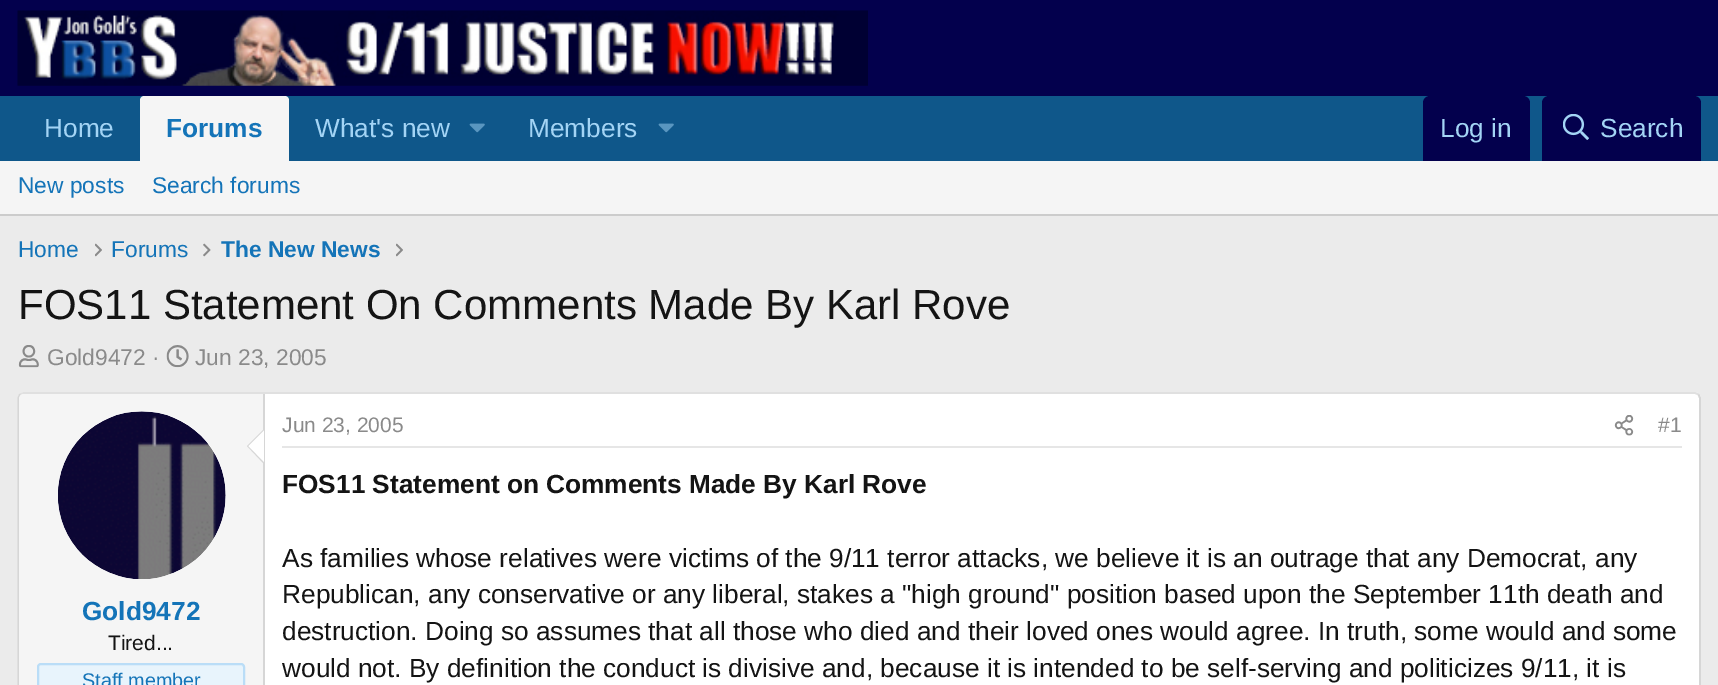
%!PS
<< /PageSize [1718 685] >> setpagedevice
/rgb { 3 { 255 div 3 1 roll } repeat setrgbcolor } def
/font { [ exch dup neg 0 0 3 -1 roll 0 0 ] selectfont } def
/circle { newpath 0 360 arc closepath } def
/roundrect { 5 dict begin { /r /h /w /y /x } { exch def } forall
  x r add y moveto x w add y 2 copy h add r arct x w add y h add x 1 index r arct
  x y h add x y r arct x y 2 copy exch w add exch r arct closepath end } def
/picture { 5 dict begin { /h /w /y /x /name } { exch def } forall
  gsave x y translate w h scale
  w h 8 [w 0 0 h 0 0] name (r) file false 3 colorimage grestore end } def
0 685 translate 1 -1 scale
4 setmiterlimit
235 235 235 rgb
0 0 1718 685 rectfill
3 0 77 rgb
0 0 1718 96 rectfill
(img/1.rgb) 17 10 851 76 picture
15 87 138 rgb
0 96 1718 65 rectfill
245 245 245 rgb
144 96 moveto 285 96 lineto 287 96 289 98 289 100 curveto 289 161 lineto 140 161 lineto 140 100 lineto 140 98 142 96 144 96 curveto closepath fill
(img/2.rgb) 469 123 16 10 picture
(img/2.rgb) 658 123 16 10 picture
3 0 77 rgb
1430 96 moveto 1523 96 lineto 1527 96 1530 99 1530 103 curveto 1530 161 lineto 1423 161 lineto 1423 103 lineto 1423 99 1426 96 1430 96 curveto closepath fill
1549 96 moveto 1694 96 lineto 1698 96 1701 99 1701 103 curveto 1701 161 lineto 1542 161 lineto 1542 103 lineto 1542 99 1545 96 1549 96 curveto closepath fill
(img/3.rgb) 1563 114 26 26 picture
245 245 245 rgb
0 161 1718 53 rectfill
204 204 204 rgb
0 214 1718 2 rectfill
(img/4.rgb) 95 243 7 14 picture
(img/5.rgb) 203 243 8 14 picture
(img/4.rgb) 396 243 7 14 picture
(img/6.rgb) 18 345 21 23 picture
(img/7.rgb) 166 345 23 23 picture
255 255 255 rgb
18 392 1683 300 7 roundrect fill
224 224 224 rgb
1.8 setlinewidth
20 394.5 moveto 21.5 393.5 23 393 24.5 393 curveto 1694 393 lineto 1695.5 393 1697 393.5 1698.5 394.5 curveto stroke
214 214 214 rgb
1698.5 394.5 moveto 1699.5 396 1700 397.5 1700 399 curveto 1700 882 lineto 1700 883.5 1699.5 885 1698.5 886.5 curveto stroke
20 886.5 moveto 19 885 18.5 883.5 18.5 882 curveto 18.5 399 lineto 18.5 397.5 19 396 20 394.5 curveto stroke
245 245 245 rgb
24 394 moveto 264 394 lineto 264 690 lineto 24 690 lineto 21 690 19 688 19 685 curveto 19 399 lineto 19 396 21 394 24 394 curveto closepath fill
214 214 214 rgb
263 394 2 291 rectfill
255 255 255 rgb
142 495 84 circle fill
(img/8.rgb) 58 411 168 168 picture
214 214 214 rgb
264 429 moveto 264 464 lineto 247 446 lineto closepath fill
255 255 255 rgb
264 430.5 moveto 264 462 lineto 248.5 446 lineto closepath fill
232 244 252 rgb
38 664 206 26 3 roundrect gsave fill grestore
186 221 247 rgb
2 setlinewidth
stroke
230 230 230 rgb
282 446 1400 2 rectfill
(img/9.rgb) 1614 415 20 21 picture
/LiberationSans-Regular 26.25 font
163 212 245 rgb
44 137 moveto (Home) show
/LiberationSans-Bold 26.25 font
20 116 184 rgb
166 137 moveto (Forums) show
/LiberationSans-Regular 26.25 font
163 212 245 rgb
[
  [(What's new) 315 137]
  [(Members) 528 137]
  [(Log in) 1440 137]
  [(Search) 1600 137]
] { aload pop moveto show } forall
/LiberationSans-Regular 22.75 font
20 116 184 rgb
[
  [(New posts) 18 193]
  [(Search forums) 152 193]
  [(Home) 18 257]
  [(Forums) 111 257]
] { aload pop moveto show } forall
/LiberationSans-Bold 22.75 font
221 257 moveto (The New News) show
/LiberationSans-Regular 42 font
20 20 20 rgb
18 319 moveto (FOS11 Statement On Comments Made By Karl Rove) show
/LiberationSans-Regular 22.75 font
138 138 138 rgb
47 365 moveto (Gold9472 ·) show
195 365 moveto (Jun 23, 2005) show
/LiberationSans-Bold 26.25 font
20 116 184 rgb
82 620 moveto (Gold9472) show
/LiberationSans-Regular 21 font
20 20 20 rgb
108 650 moveto (Tired...) show
/LiberationSans-Regular 19.75 font
20 116 184 rgb
82 687 moveto (Staff member) show
/LiberationSans-Regular 21 font
138 138 138 rgb
282 432 moveto (Jun 23, 2005) show
1658 432 moveto (#1) show
/LiberationSans-Bold 26.25 font
20 20 20 rgb
282 493 moveto (FOS11 Statement on Comments Made By Karl Rove) show
/LiberationSans-Regular 26.25 font
[
  [(As families whose relatives were victims of the 9/11 terror attacks, we believe it is an outrage that any Democrat, any) 282 567]
  [(Republican, any conservative or any liberal, stakes a "high ground" position based upon the September 11th death and) 282 603]
  [(destruction. Doing so assumes that all those who died and their loved ones would agree. In truth, some would and some) 282 640]
  [(would not. By definition the conduct is divisive and, because it is intended to be self-serving and politicizes 9/11, it is) 282 677]
] { aload pop moveto show } forall
showpage
